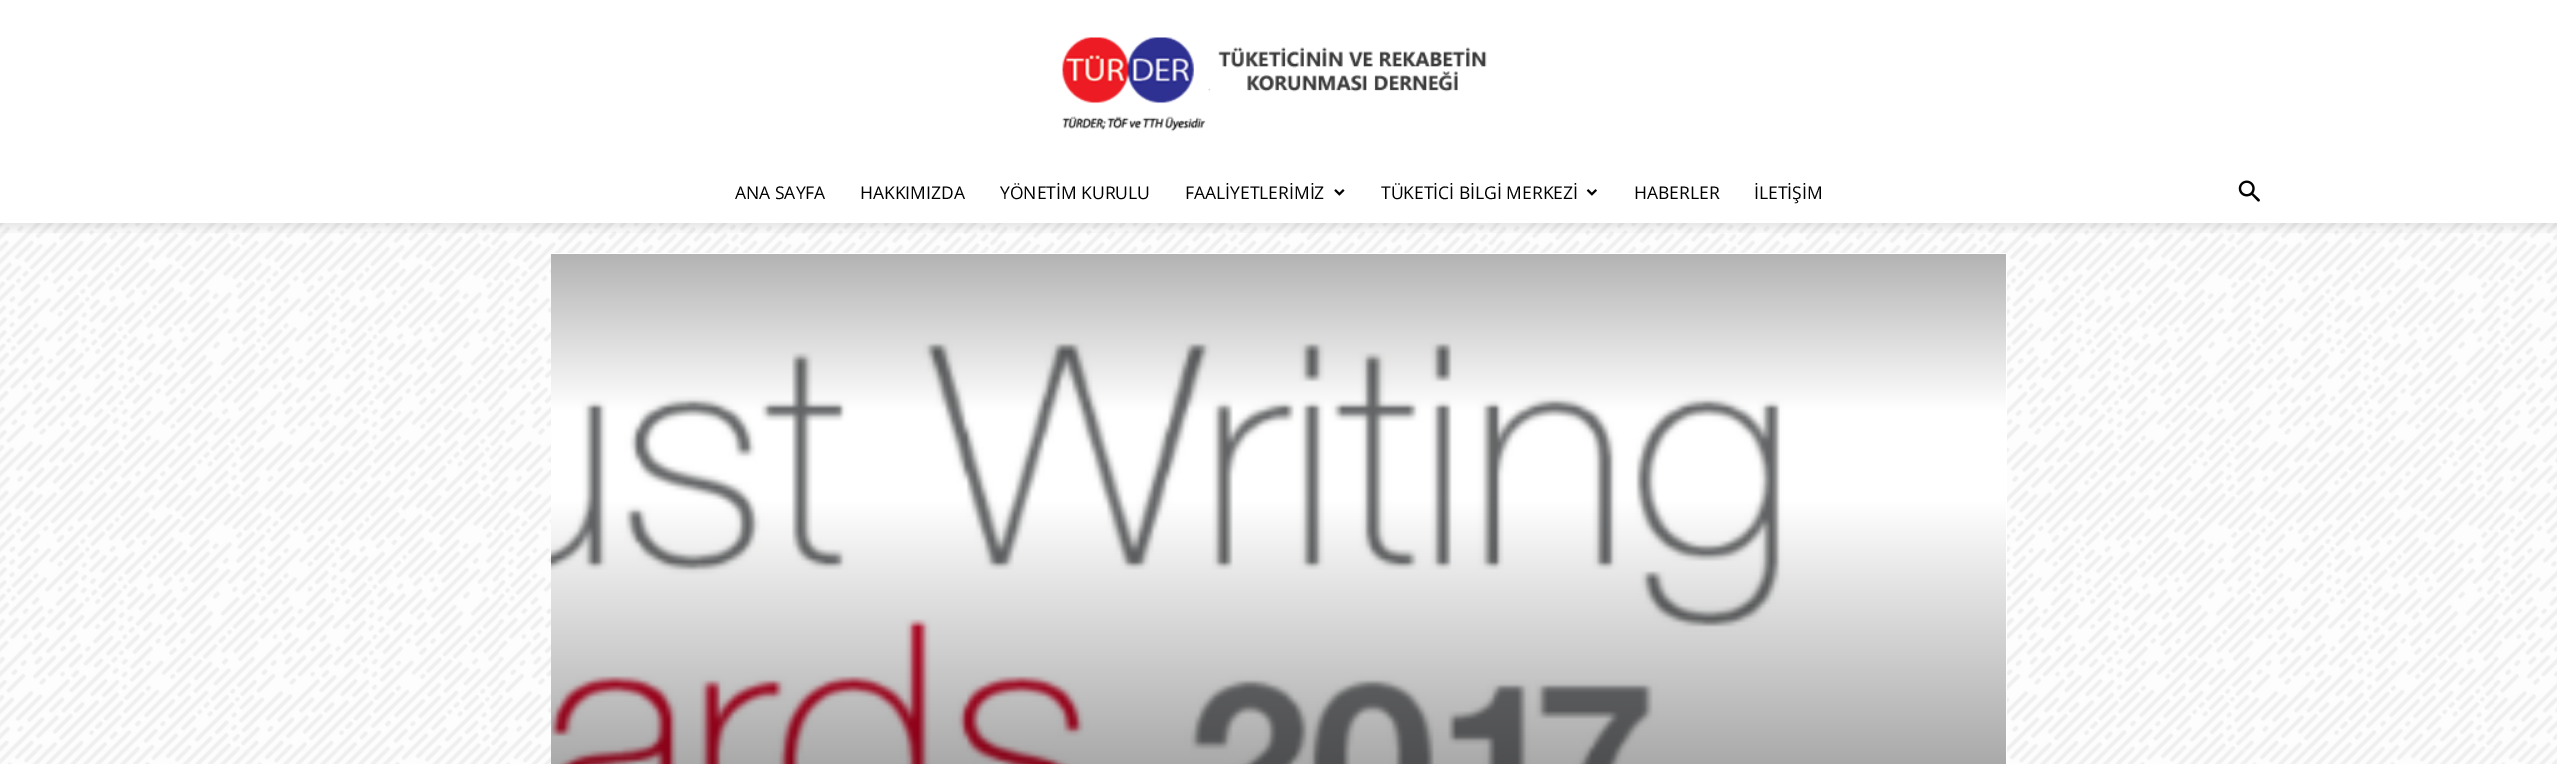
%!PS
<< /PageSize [2557 764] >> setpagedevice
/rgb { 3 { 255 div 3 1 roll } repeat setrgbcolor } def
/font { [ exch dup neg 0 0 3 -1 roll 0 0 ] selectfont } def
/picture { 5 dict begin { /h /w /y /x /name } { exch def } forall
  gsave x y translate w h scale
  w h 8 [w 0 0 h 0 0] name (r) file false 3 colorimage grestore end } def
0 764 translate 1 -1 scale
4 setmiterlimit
255 255 255 rgb
0 0 2557 764 rectfill
(img/1.rgb) 0 223 2557 541 picture
(img/2.rgb) 1062 37 425 95 picture
(img/3.rgb) 1334 189 11 7 picture
(img/4.rgb) 1586 189 11 7 picture
(img/5.rgb) 2238 180 22 22 picture
(img/6.rgb) 0 223 2557 10 picture
(img/7.rgb) 551 253 1456 511 picture
/OpenSans-Regular 17.5 font
0 0 0 rgb
[
  [(ANA SAYFA) 735 199]
  [(HAKKIMIZDA) 860 199]
  [(YÖNETİM KURULU) 1000 199]
  [(FAALİYETLERİMİZ) 1185 199]
  [(TÜKETİCİ BİLGİ MERKEZİ) 1381 199]
  [(HABERLER) 1634 199]
  [(İLETİŞİM) 1754 199]
] { aload pop moveto show } forall
showpage
